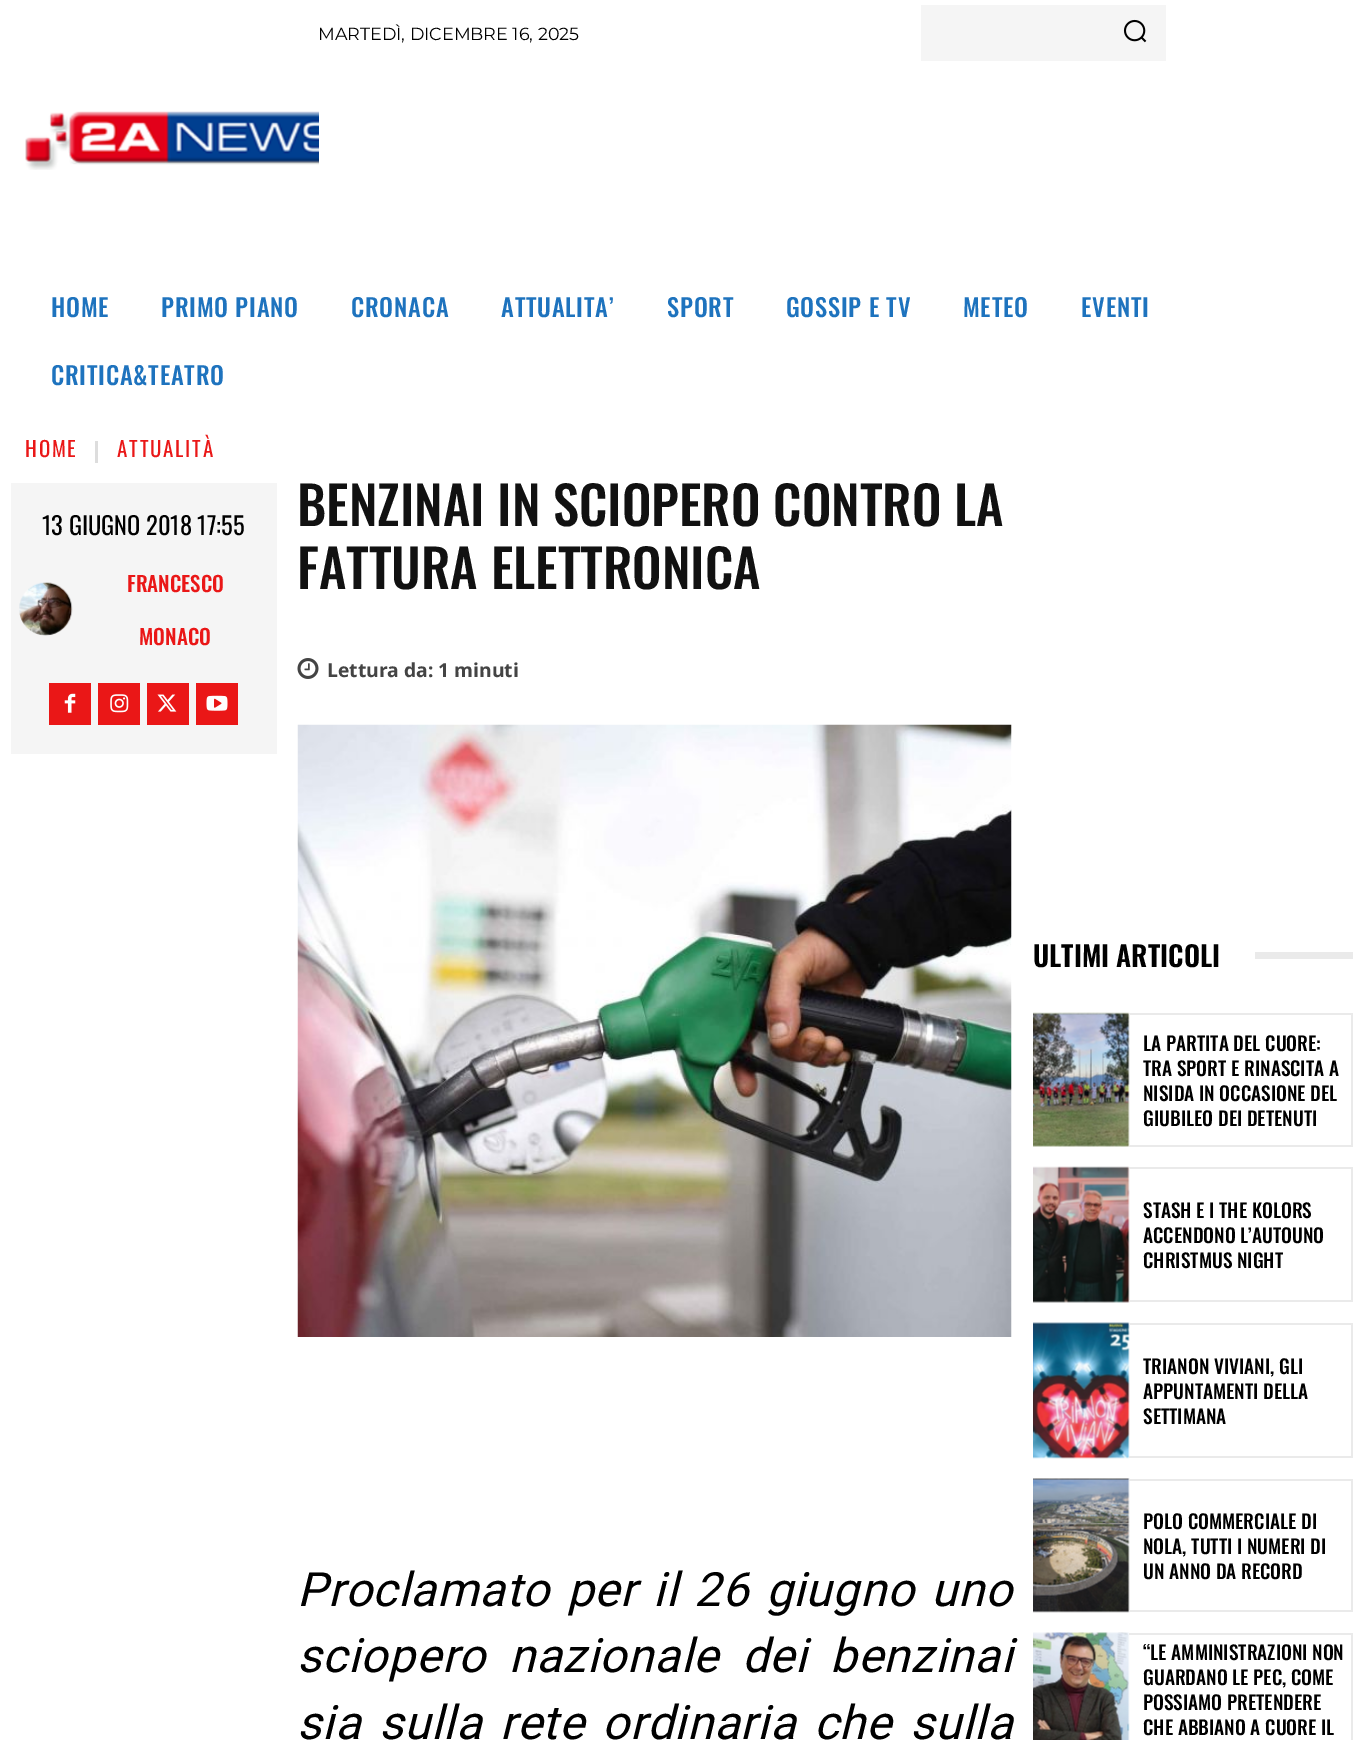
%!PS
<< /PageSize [1362 1740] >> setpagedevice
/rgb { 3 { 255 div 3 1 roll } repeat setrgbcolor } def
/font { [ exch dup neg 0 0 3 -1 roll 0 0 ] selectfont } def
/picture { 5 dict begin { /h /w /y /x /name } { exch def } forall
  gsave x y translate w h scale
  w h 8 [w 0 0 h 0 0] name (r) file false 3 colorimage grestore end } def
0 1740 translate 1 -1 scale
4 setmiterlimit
255 255 255 rgb
0 0 1362 1740 rectfill
245 245 245 rgb
921 5 245 56 rectfill
(img/1.rgb) 1123 19 24 24 picture
(img/2.rgb) 25 111 294 59 picture
221 221 221 rgb
95 441 3 22 rectfill
245 245 245 rgb
11 483 266 271 rectfill
(img/3.rgb) 19 582 54 54 picture
234 23 23 rgb
49 683 42 42 rectfill
(img/4.rgb) 64 693 12 20 picture
98 683 42 42 rectfill
(img/5.rgb) 110 694 19 19 picture
147 683 42 42 rectfill
(img/6.rgb) 157 694 20 18 picture
196 683 42 42 rectfill
(img/7.rgb) 206 695 22 16 picture
(img/8.rgb) 297 658 22 21 picture
(img/9.rgb) 297 724 715 613 picture
234 234 234 rgb
1255 952 98 7 rectfill
(img/10.rgb) 1033 1012 97 135 picture
[
  [1129 1013 224 2 234 234 234]
  [1351 1013 2 133 234 234 234]
  [1129 1145 224 2 234 234 234]
] { aload pop rgb rectfill } forall
(img/11.rgb) 1033 1166 97 137 picture
[
  [1129 1167 224 2 234 234 234]
  [1351 1167 2 135 234 234 234]
  [1129 1300 224 2 234 234 234]
] { aload pop rgb rectfill } forall
(img/12.rgb) 1033 1322 97 137 picture
[
  [1129 1323 224 2 234 234 234]
  [1351 1323 2 135 234 234 234]
  [1129 1456 224 2 234 234 234]
] { aload pop rgb rectfill } forall
(img/13.rgb) 1033 1478 97 135 picture
[
  [1129 1479 224 2 234 234 234]
  [1351 1479 2 133 234 234 234]
  [1129 1610 224 2 234 234 234]
] { aload pop rgb rectfill } forall
(img/14.rgb) 1033 1632 97 108 picture
1129 1633 224 2 rectfill
1351 1633 2 107 rectfill
/Montserrat-Regular 17.5 font
0 0 0 rgb
318 40 moveto (MARTEDÌ, DICEMBRE 16, 2025) show
/Oswald-Medium 24.5 font
30 115 190 rgb
51 317 moveto 0.75 0 (HOME) ashow
161 317 moveto 0.75 0 (PRIMO PIANO) ashow
351 317 moveto 0.75 0 (CRONACA) ashow
501 317 moveto 0.75 0 (ATTUALITA’) ashow
667 317 moveto 0.75 0 (SPORT) ashow
786 317 moveto 0.75 0 (GOSSIP E TV) ashow
963 317 moveto 0.75 0 (METEO) ashow
1081 317 moveto 0.75 0 (EVENTI) ashow
51 385 moveto 0.75 0 (CRITICA&TEATRO) ashow
/Oswald-Regular 21 font
234 23 23 rgb
25 457 moveto 1.75 0 (HOME) ashow
117 457 moveto 1.75 0 (ATTUALITÀ) ashow
/Oswald-Regular 24.5 font
0 0 0 rgb
42 535 moveto (13 GIUGNO 2018 17:55) show
/Oswald-Medium 21 font
234 23 23 rgb
127 592 moveto (FRANCESCO) show
139 645 moveto (MONACO) show
/Oswald-Medium 52.5 font
17 17 17 rgb
297 526 moveto (BENZINAI IN SCIOPERO CONTRO LA) show
297 589 moveto (FATTURA ELETTRONICA) show
/OpenSans-Bold 19.25 font
68 68 68 rgb
327 677 moveto (Lettura da: 1 minuti) show
/Roboto-Italic 47.25 font
0 0 0 rgb
297 1606 moveto 3.75 0 32 0.9 0 (Proclamato per il 26 giugno uno) awidthshow
297 1672 moveto 10 0 32 0.9 0 (sciopero nazionale dei benzinai) awidthshow
297 1739 moveto 4.75 0 32 0.9 0 (sia sulla rete ordinaria che sulla) awidthshow
/Oswald-SemiBold 28 font
1033 967 moveto (ULTIMI ARTICOLI) show
/Oswald-Medium 19.25 font
[
  [(LA PARTITA DEL CUORE:) 1143 1051]
  [(TRA SPORT E RINASCITA A) 1143 1076]
  [(NISIDA IN OCCASIONE DEL) 1143 1101]
  [(GIUBILEO DEI DETENUTI) 1143 1126]
  [(STASH E I THE KOLORS) 1143 1218]
  [(ACCENDONO L’AUTOUNO) 1143 1243]
  [(CHRISTMUS NIGHT) 1143 1268]
  [(TRIANON VIVIANI, GLI) 1143 1374]
  [(APPUNTAMENTI DELLA) 1143 1399]
  [(SETTIMANA) 1143 1424]
  [(POLO COMMERCIALE DI) 1143 1529]
  [(NOLA, TUTTI I NUMERI DI) 1143 1554]
  [(UN ANNO DA RECORD) 1143 1579]
  [(“LE AMMINISTRAZIONI NON) 1143 1660]
  [(GUARDANO LE PEC, COME) 1143 1685]
  [(POSSIAMO PRETENDERE) 1143 1710]
  [(CHE ABBIANO A CUORE IL) 1143 1735]
] { aload pop moveto show } forall
showpage
